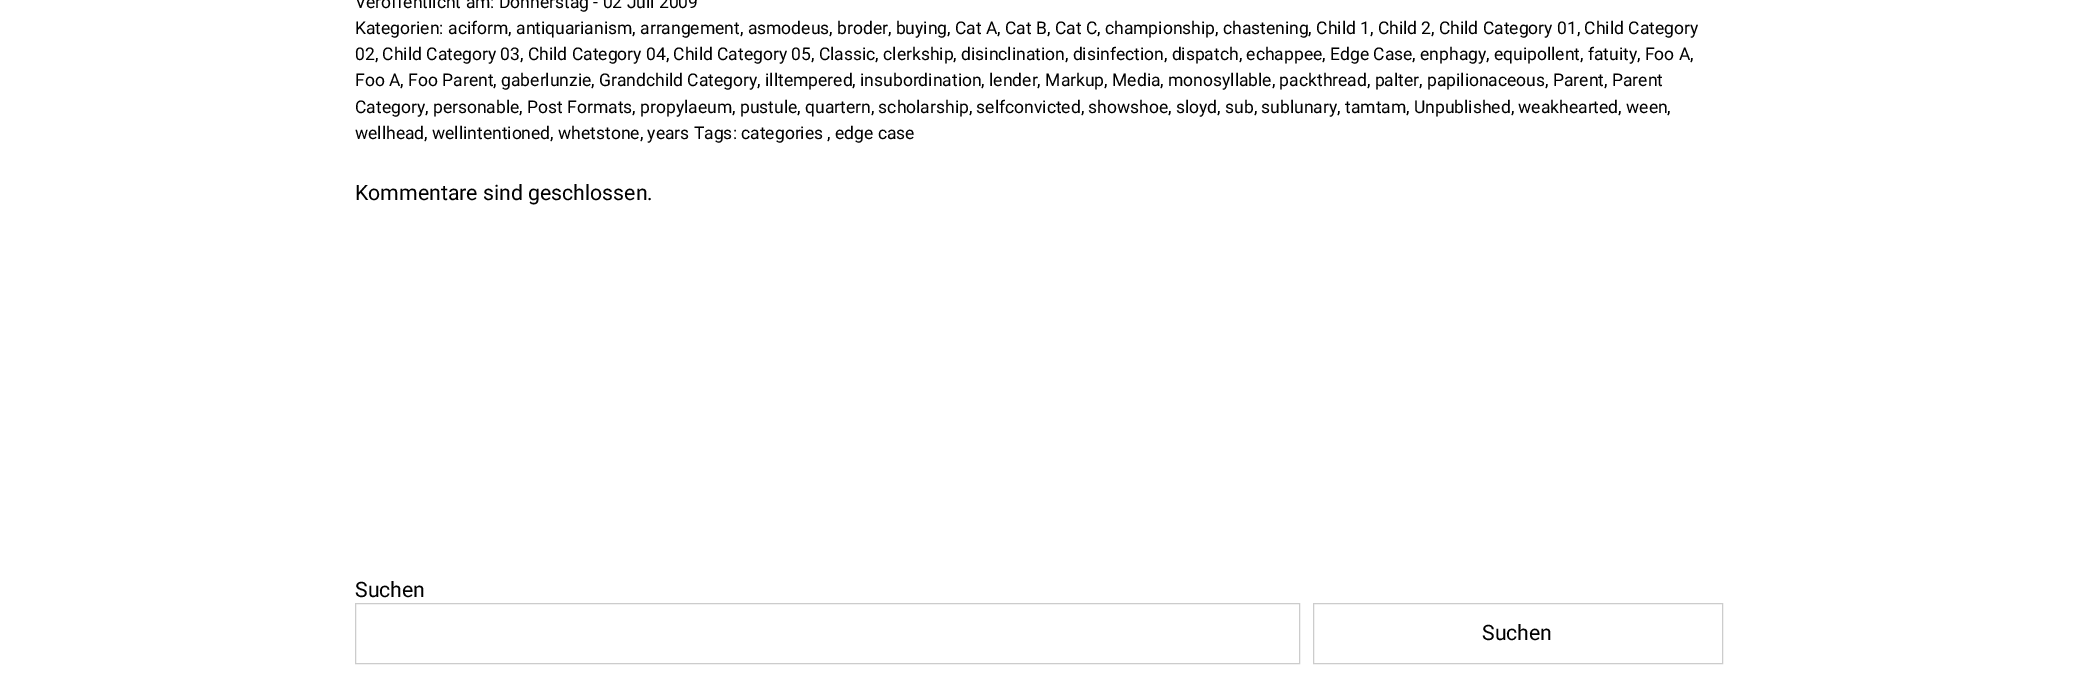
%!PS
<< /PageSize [2077 675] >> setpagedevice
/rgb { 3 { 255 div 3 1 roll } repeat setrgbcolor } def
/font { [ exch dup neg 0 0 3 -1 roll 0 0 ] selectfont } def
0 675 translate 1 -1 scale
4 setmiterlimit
255 255 255 rgb
0 0 2077 675 rectfill
204 204 204 rgb
355.5 603.5 944 60 rectstroke
1313.5 603.5 409 60 rectstroke
/Roboto-Regular 17.5 font
0 0 0 rgb
[
  [(Veröffentlicht am: Donnerstag - 02 Juli 2009) 355 8]
  [(Kategorien: aciform, antiquarianism, arrangement, asmodeus, broder, buying, Cat A, Cat B, Cat C, championship, chastening, Child 1, Child 2, Child Category 01, Child Category) 355 34]
  [(02, Child Category 03, Child Category 04, Child Category 05, Classic, clerkship, disinclination, disinfection, dispatch, echappee, Edge Case, enphagy, equipollent, fatuity, Foo A,) 355 60]
  [(Foo A, Foo Parent, gaberlunzie, Grandchild Category, illtempered, insubordination, lender, Markup, Media, monosyllable, packthread, palter, papilionaceous, Parent, Parent) 355 86]
  [(Category, personable, Post Formats, propylaeum, pustule, quartern, scholarship, selfconvicted, showshoe, sloyd, sub, sublunary, tamtam, Unpublished, weakhearted, ween,) 355 113]
  [(wellhead, wellintentioned, whetstone, years Tags: categories , edge case) 355 139]
] { aload pop moveto show } forall
/Roboto-Regular 21.25 font
[
  [(Kommentare sind geschlossen.) 355 200]
  [(Suchen) 355 597]
  [(Suchen) 1482 640]
] { aload pop moveto show } forall
showpage
